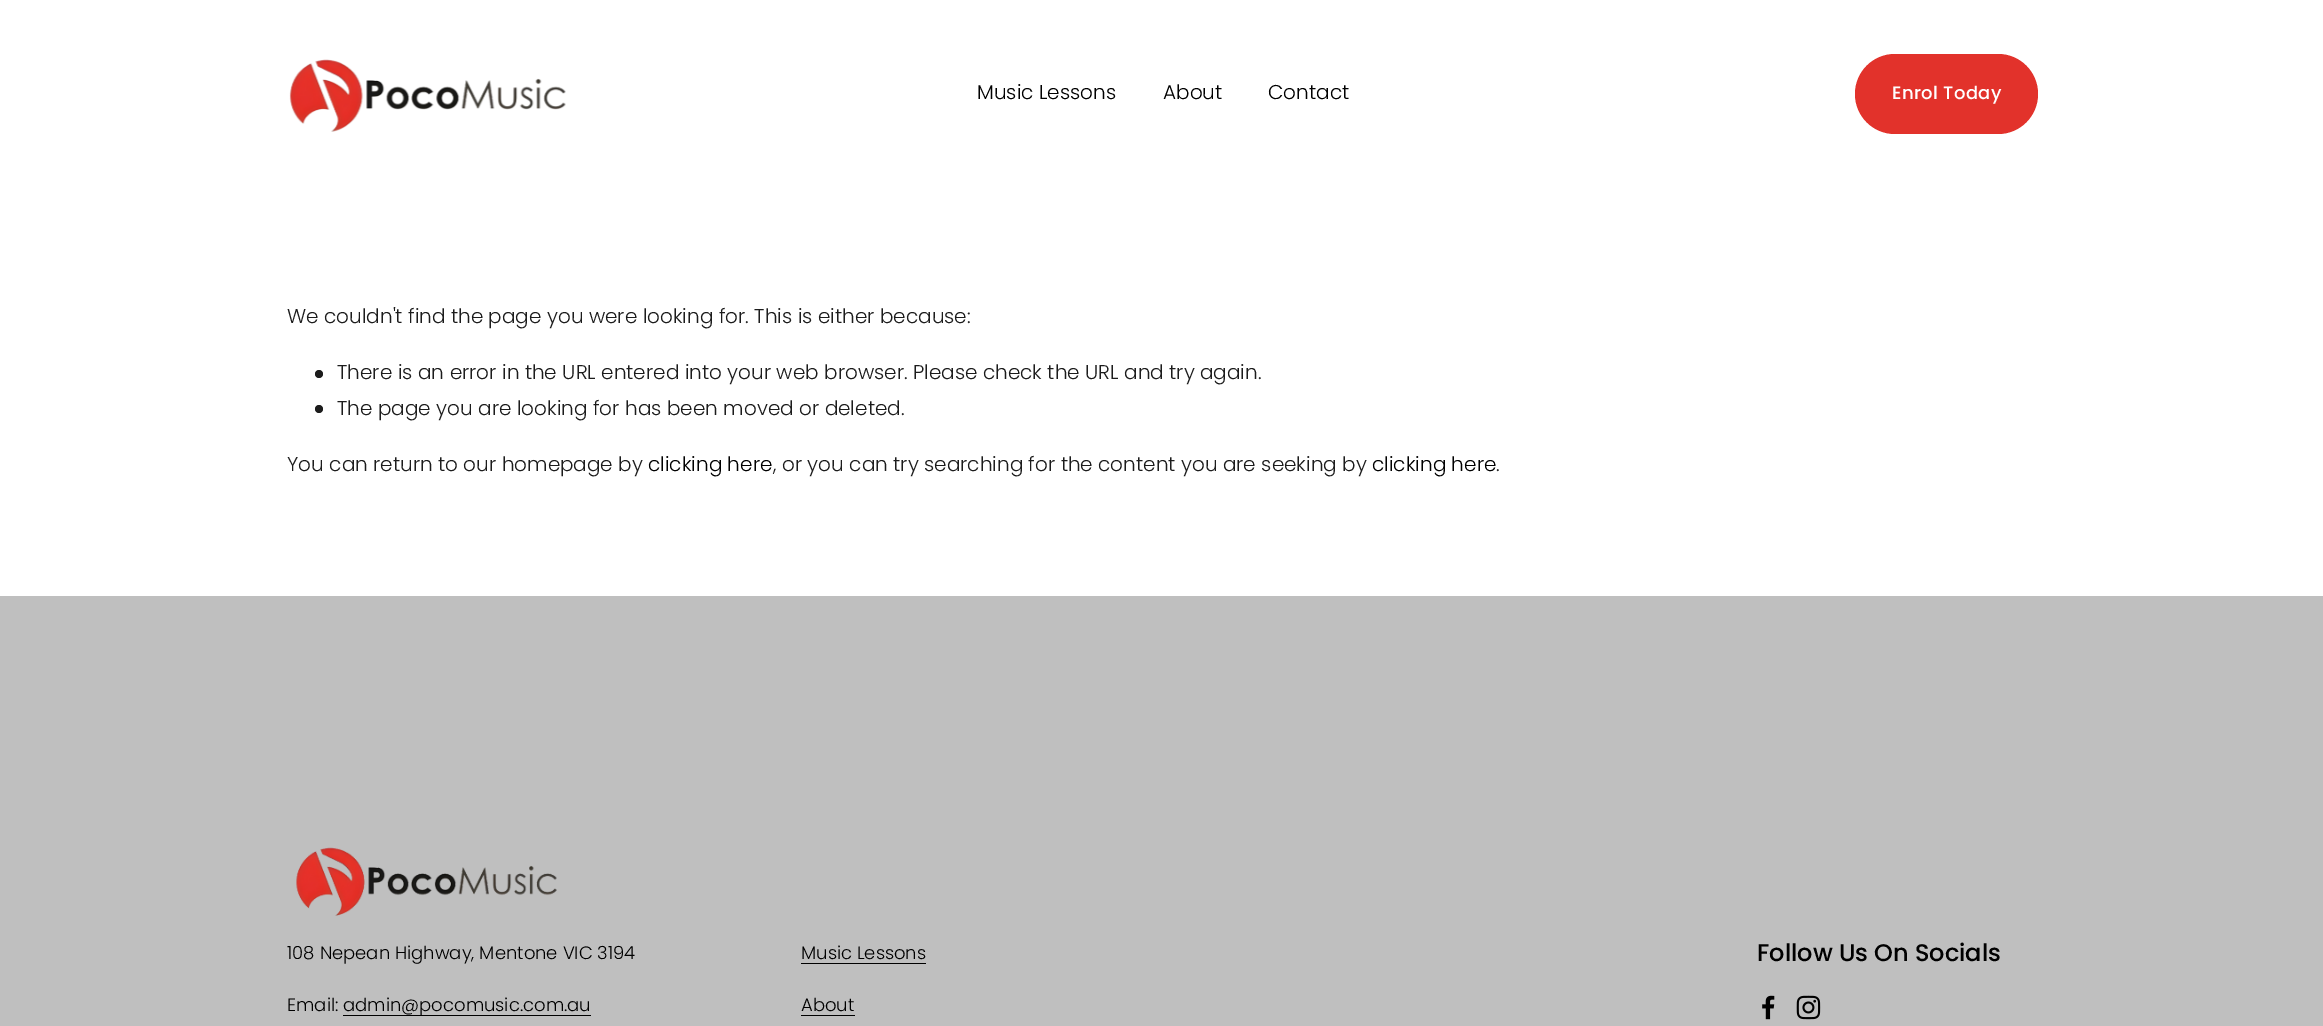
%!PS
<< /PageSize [2323 1026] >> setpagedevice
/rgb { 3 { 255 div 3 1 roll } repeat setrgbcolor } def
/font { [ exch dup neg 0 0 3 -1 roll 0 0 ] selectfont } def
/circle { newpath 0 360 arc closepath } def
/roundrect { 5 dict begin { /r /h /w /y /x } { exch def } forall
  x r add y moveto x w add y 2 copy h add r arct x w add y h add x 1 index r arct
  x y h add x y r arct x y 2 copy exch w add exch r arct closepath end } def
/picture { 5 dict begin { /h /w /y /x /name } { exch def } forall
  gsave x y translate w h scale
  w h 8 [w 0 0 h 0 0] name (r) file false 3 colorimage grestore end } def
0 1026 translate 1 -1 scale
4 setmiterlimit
255 255 255 rgb
0 0 2323 1026 rectfill
(img/1.rgb) 289 59 277 73 picture
226 50 43 rgb
1855 54 183 80 40 roundrect fill
28 28 28 rgb
319 374 4 circle fill
319 409 4 circle fill
191 191 191 rgb
0 596 2323 430 rectfill
(img/2.rgb) 296 847 261 69 picture
[
  [343 1015 248 1 0 0 0]
  [801 963 125 1 0 0 0]
  [801 1015 54 1 0 0 0]
] { aload pop rgb rectfill } forall
(img/3.rgb) 1762 995 13 25 picture
(img/4.rgb) 1796 995 25 25 picture
/Poppins-Light 20 font
[
  [(Music Lessons) 977 99]
  [(About) 1163 99]
  [(Contact) 1268 99]
] { aload pop moveto show } forall
/Poppins-Medium 18 font
255 255 255 rgb
1892 99 moveto 0.4 0 (Enrol Today) ashow
/Poppins-Light 20 font
28 28 28 rgb
[
  [(We couldn't find the page you were looking for. This is either because:) 287 323]
  [(There is an error in the URL entered into your web browser. Please check the URL and try again.) 337 379]
  [(The page you are looking for has been moved or deleted.) 337 415]
  [(You can return to our homepage by) 287 471]
] { aload pop moveto show } forall
0 0 0 rgb
648 471 moveto (clicking here) show
28 28 28 rgb
773 471 moveto (, or you can try searching for the content you are seeking by) show
0 0 0 rgb
1372 471 moveto (clicking here) show
28 28 28 rgb
1496 471 moveto (.) show
/Poppins-Light 18 font
0 0 0 rgb
[
  [(108 Nepean Highway, Mentone VIC 3194) 287 959]
  [(Email:) 287 1011]
  [(admin@pocomusic.com.au) 343 1011]
  [(Music Lessons) 801 959]
  [(About) 801 1011]
] { aload pop moveto show } forall
/Poppins-Medium 24 font
1757 961 moveto (Follow Us On Socials) show
showpage
